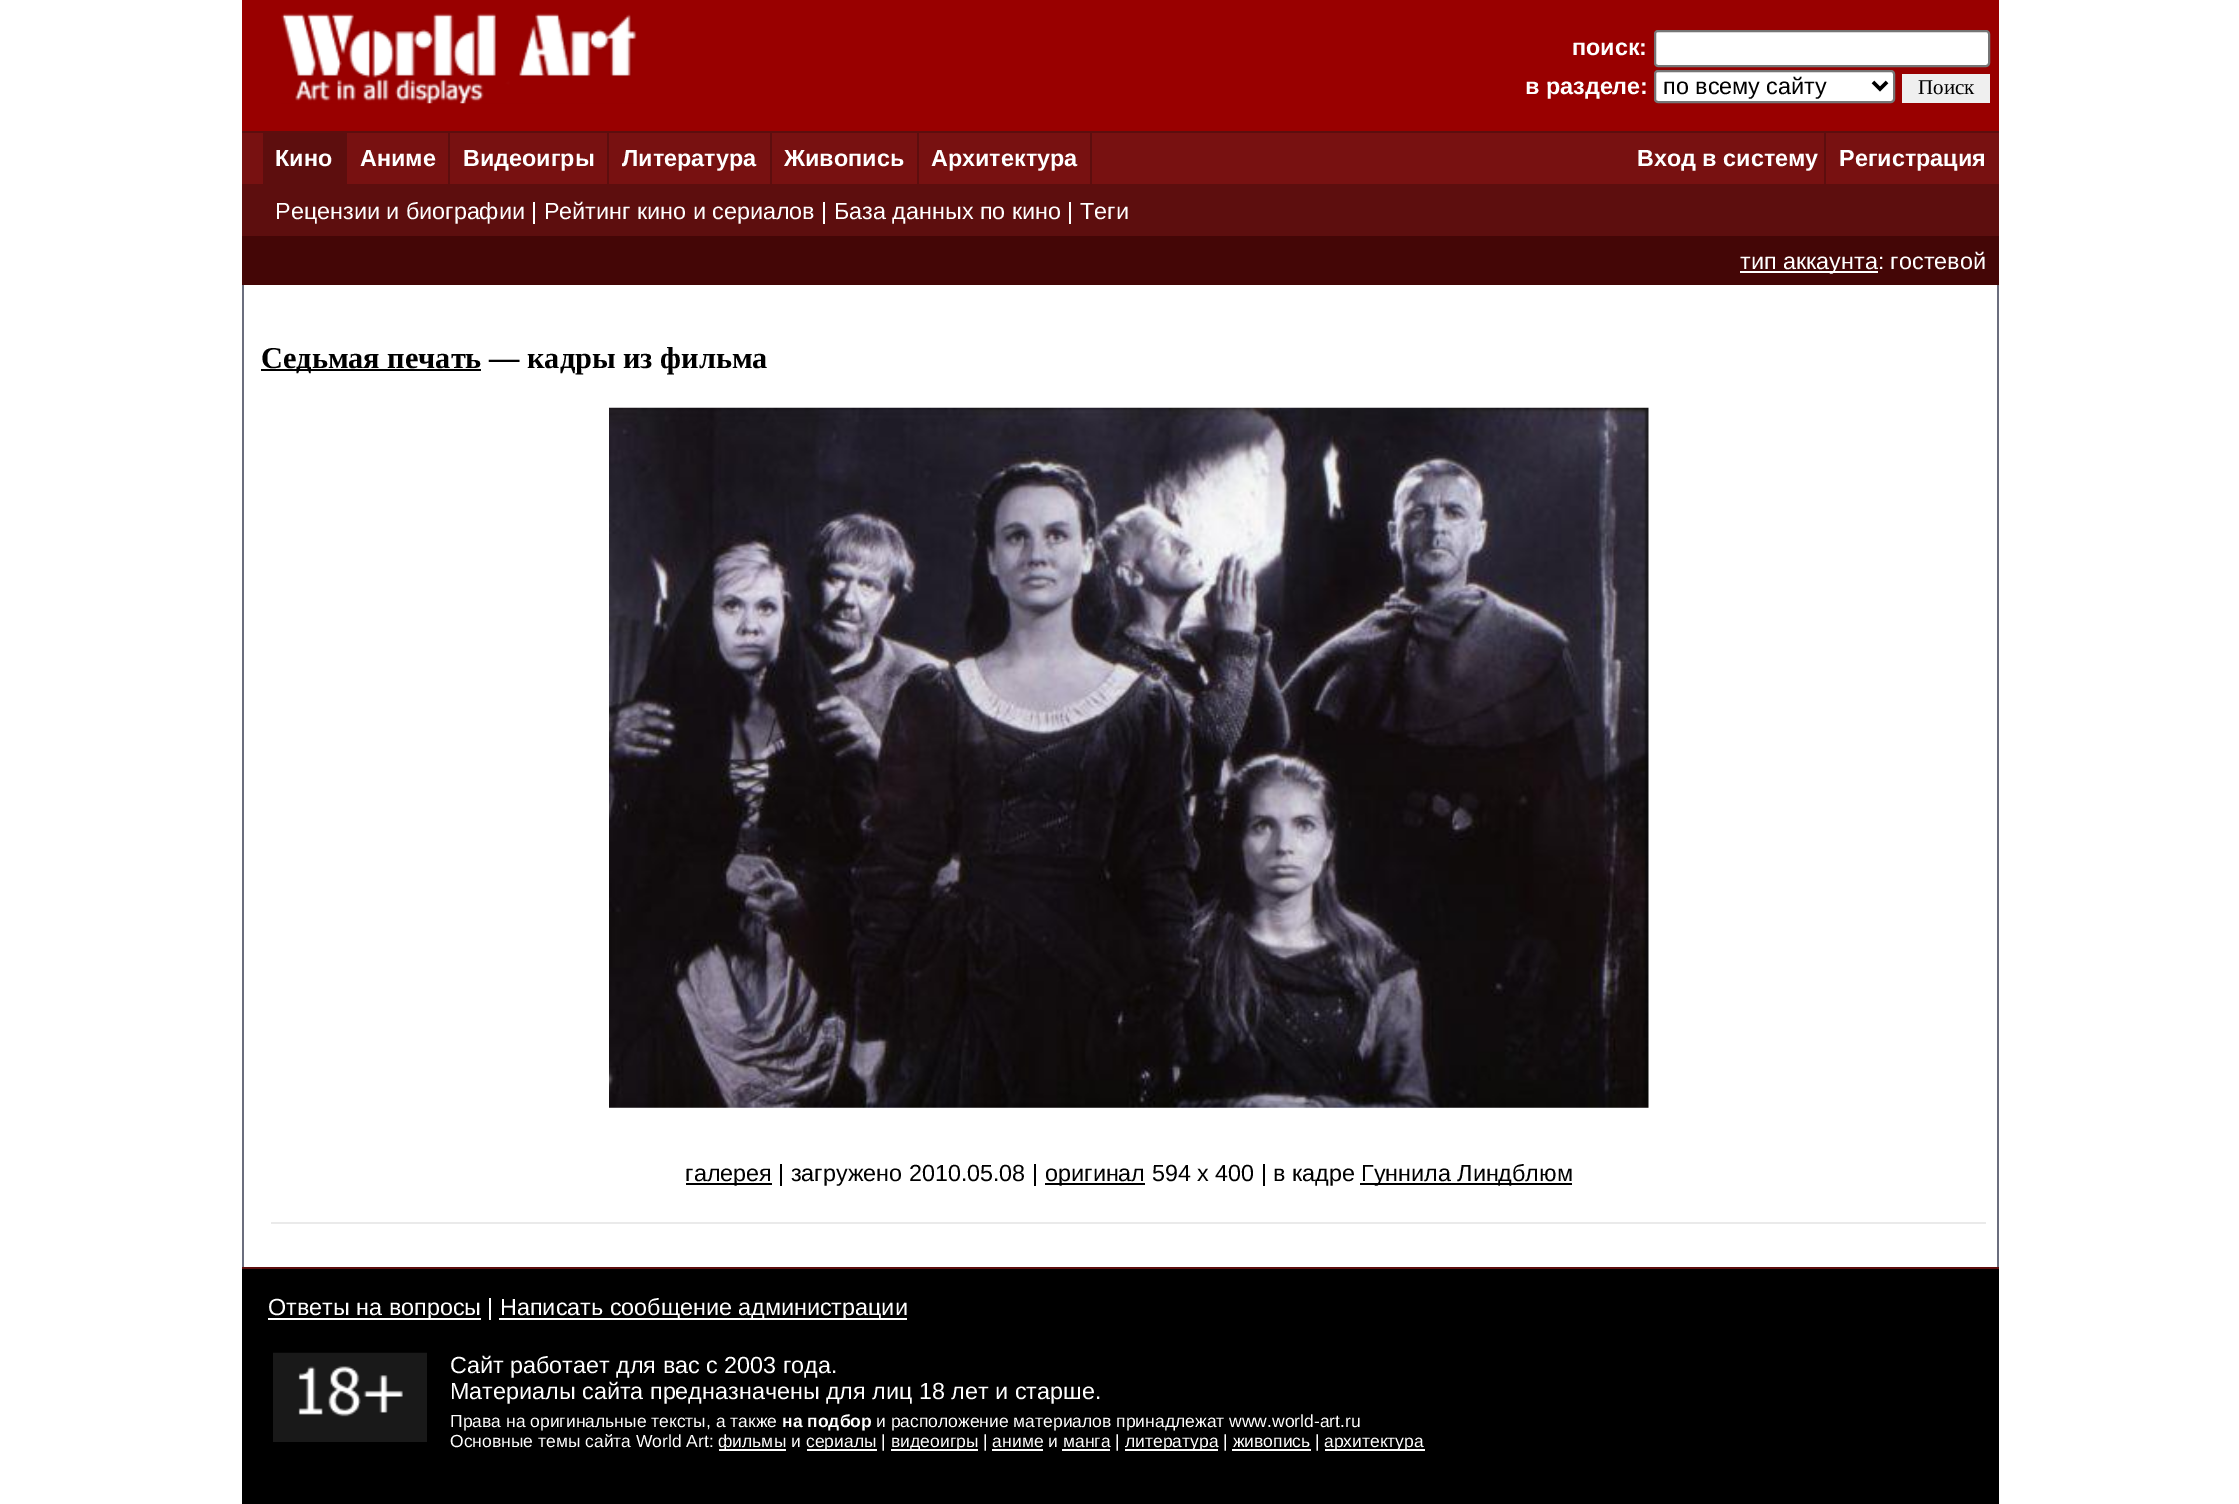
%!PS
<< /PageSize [2239 1504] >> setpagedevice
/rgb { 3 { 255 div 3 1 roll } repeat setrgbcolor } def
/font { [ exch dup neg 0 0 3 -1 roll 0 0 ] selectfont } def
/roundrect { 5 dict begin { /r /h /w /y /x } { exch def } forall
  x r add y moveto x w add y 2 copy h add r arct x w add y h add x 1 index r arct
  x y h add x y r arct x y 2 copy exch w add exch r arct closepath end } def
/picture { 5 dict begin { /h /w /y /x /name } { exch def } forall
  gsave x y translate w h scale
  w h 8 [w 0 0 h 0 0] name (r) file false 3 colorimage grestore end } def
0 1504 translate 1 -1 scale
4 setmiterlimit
255 255 255 rgb
0 0 2239 1504 rectfill
153 0 0 rgb
242 0 1757 131 rectfill
(img/1.rgb) 281 13 356 91 picture
255 255 255 rgb
1655 31 334 35 3 roundrect gsave fill grestore
118 118 118 rgb
2 setlinewidth
stroke
255 255 255 rgb
1655 71 239 31 3 roundrect gsave fill grestore
118 118 118 rgb
stroke
0 0 0 rgb
3.5 setlinewidth
1873 82 moveto 1880 89 lineto 1887 82 lineto stroke
[
  [1902 74 88 29 239 239 239]
  [242 131 1757 2 93 14 14]
  [242 133 1757 51 120 17 17]
  [263 133 84 51 93 14 14]
  [448 133 2 51 93 14 14]
  [607 133 2 51 93 14 14]
  [770 133 2 51 93 14 14]
  [917 133 2 51 93 14 14]
  [1090 133 2 51 93 14 14]
  [1824 133 2 51 93 14 14]
  [242 184 1757 2 93 14 14]
  [242 186 1757 50 93 14 14]
  [242 236 1757 49 68 6 6]
  [1740 271 138 2 255 255 255]
  [242 285 2 982 107 110 126]
  [261 369 220 2 0 0 0]
] { aload pop rgb rectfill } forall
(img/2.rgb) 609 407 1040 701 picture
[
  [686 1183 86 2 0 0 0]
  [1045 1183 100 2 0 0 0]
  [1360 1183 212 2 0 0 0]
  [271 1222 1715 2 234 234 234]
  [1997 285 2 982 107 110 126]
  [242 1267 1757 2 93 14 14]
  [242 1269 1757 235 0 0 0]
  [268 1318 213 2 255 255 255]
  [499 1318 408 2 255 255 255]
] { aload pop rgb rectfill } forall
(img/3.rgb) 273 1352 154 90 picture
[
  [719 1449 67 2 255 255 255]
  [807 1449 70 2 255 255 255]
  [891 1449 87 2 255 255 255]
  [1125 1449 93 2 255 255 255]
  [1325 1449 100 2 255 255 255]
  [992 1449 51 2 255 255 255]
  [1062 1449 48 2 255 255 255]
  [1232 1449 79 2 255 255 255]
] { aload pop rgb rectfill } forall
/LiberationSans-Bold 23.35 font
1572 55 moveto (поиск:) show
1525 94 moveto (в разделе:) show
/LiberationSans-Regular 23.35 font
0 0 0 rgb
1663 94 moveto (по всему сайту) show
/LiberationSerif-Regular 21 font
1918 94 moveto (Поиск) show
/LiberationSans-Bold 23.35 font
255 255 255 rgb
[
  [(Кино) 275 166]
  [(Аниме) 360 166]
  [(Видеоигры) 463 166]
  [(Литература) 622 166]
  [(Живопись) 784 166]
  [(Архитектура) 931 166]
  [(Вход в систему) 1637 166]
  [(Регистрация) 1839 166]
] { aload pop moveto show } forall
/LiberationSans-Regular 23.35 font
275 219 moveto (Рецензии и биографии | Рейтинг кино и сериалов | База данных по кино | Теги) show
1740 269 moveto (тип аккаунта: гостевой) show
/LiberationSerif-Bold 30.3 font
0 0 0 rgb
261 368 moveto (Седьмая печать — кадры из фильма) show
/LiberationSans-Regular 23.35 font
[
  [(галерея | загружено 2010.05.08 |) 685 1181]
  [(оригинал 594 х 400 | в кадре) 1045 1181]
  [(Гуннила Линдблюм) 1361 1181]
] { aload pop moveto show } forall
255 255 255 rgb
[
  [(Ответы на вопросы |) 268 1315]
  [(Написать сообщение администрации) 500 1315]
  [(Сайт работает для вас с 2003 года.) 450 1373]
  [(Материалы сайта предназначены для лиц 18 лет и старше.) 450 1399]
] { aload pop moveto show } forall
/LiberationSans-Regular 17.5 font
450 1427 moveto (Права на оригинальные тексты, а также) show
/LiberationSans-Bold 17.5 font
782 1427 moveto (на подбор) show
/LiberationSans-Regular 17.5 font
[
  [(и расположение материалов принадлежат www.world-art.ru) 876 1427]
  [(Основные темы сайта World Art:) 450 1447]
  [(фильмы и) 718 1447]
  [(сериалы |) 806 1447]
  [(видеоигры | аниме и манга |) 891 1447]
  [(литература | живопись |) 1125 1447]
  [(архитектура) 1324 1447]
] { aload pop moveto show } forall
showpage
